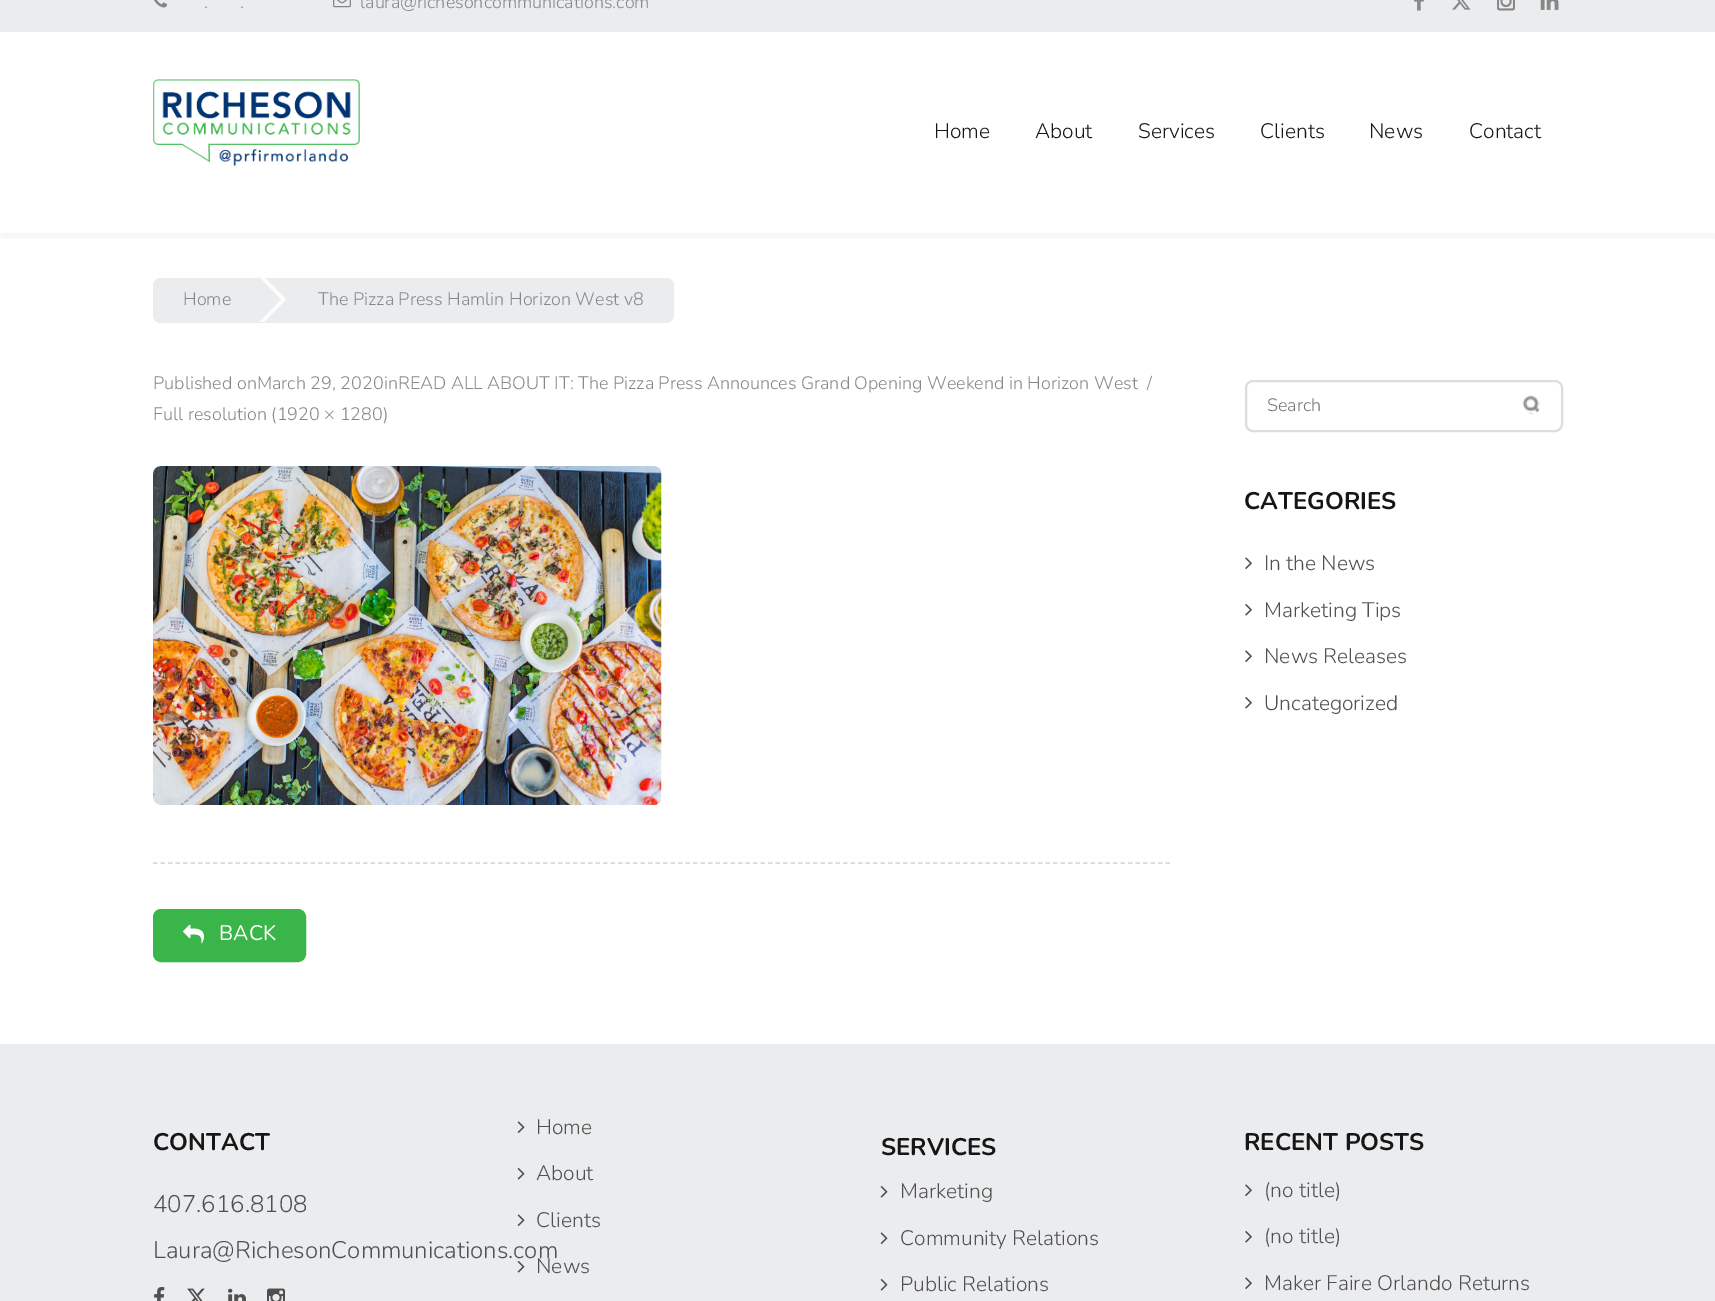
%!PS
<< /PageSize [1715 1301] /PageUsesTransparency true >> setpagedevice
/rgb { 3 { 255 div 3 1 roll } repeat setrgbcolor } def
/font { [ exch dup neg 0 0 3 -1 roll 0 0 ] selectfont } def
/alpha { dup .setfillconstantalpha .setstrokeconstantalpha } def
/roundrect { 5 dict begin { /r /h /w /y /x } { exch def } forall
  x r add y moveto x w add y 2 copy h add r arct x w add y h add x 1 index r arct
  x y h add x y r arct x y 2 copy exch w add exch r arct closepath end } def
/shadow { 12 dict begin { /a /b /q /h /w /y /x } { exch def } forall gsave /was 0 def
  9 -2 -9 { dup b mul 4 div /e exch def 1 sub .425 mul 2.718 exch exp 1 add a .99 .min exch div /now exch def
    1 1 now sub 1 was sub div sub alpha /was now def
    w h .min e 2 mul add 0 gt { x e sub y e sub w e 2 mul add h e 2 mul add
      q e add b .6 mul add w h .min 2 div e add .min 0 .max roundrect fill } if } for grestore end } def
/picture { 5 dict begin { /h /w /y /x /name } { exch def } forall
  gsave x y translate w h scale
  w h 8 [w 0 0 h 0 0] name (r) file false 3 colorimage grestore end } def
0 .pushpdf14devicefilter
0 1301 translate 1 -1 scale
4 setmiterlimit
255 255 255 rgb
0 0 1715 1301 rectfill
235 236 238 rgb
0 0 1715 32 rectfill
(img/1.rgb) 154 0 14 8 picture
(img/2.rgb) 333 0 18 8 picture
(img/3.rgb) 1414 0 10 11 picture
(img/4.rgb) 1452 0 19 10 picture
(img/5.rgb) 1497 0 18 11 picture
(img/6.rgb) 1540 0 19 10 picture
(img/7.rgb) 153 79 207 87 picture
gsave
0 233 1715 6 rectclip
0 0 0 rgb
0 227 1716 12 0 2 0.04 shadow
grestore
161 278 moveto 288 278 lineto 288 323 lineto 161 323 lineto 156.5 323 153 319.5 153 315 curveto 153 286 lineto 153 281.5 156.5 278 161 278 curveto closepath fill
(img/8.rgb) 259 278 27 44 picture
288 278 moveto 666 278 lineto 670.5 278 674 281.5 674 286 curveto 674 315 lineto 674 319.5 670.5 323 666 323 curveto 288 323 lineto closepath fill
217 217 217 rgb
1.5 setlinewidth
[4.5 3] 0 setdash
153 863 moveto 1170 863 lineto stroke
(img/9.rgb) 153 466 509 339 picture
58 181 74 rgb
154 910 151 51 7 roundrect gsave fill grestore
2 setlinewidth
[] 0 setdash
stroke
(img/10.rgb) 183 924 21 20 picture
221 221 221 rgb
1246 381 316 50 7 roundrect stroke
(img/11.rgb) 1522 395 18 19 picture
(img/12.rgb) 1245 557 7 12 picture
(img/13.rgb) 1245 604 7 12 picture
(img/12.rgb) 1245 650 7 12 picture
(img/13.rgb) 1245 697 7 12 picture
235 236 238 rgb
0 1044 1715 257 rectfill
(img/14.rgb) 154 1287 11 14 picture
(img/15.rgb) 187 1288 18 13 picture
(img/16.rgb) 228 1288 18 13 picture
(img/17.rgb) 267 1288 18 13 picture
(img/18.rgb) 517 1121 8 12 picture
(img/19.rgb) 517 1168 8 12 picture
(img/18.rgb) 517 1214 8 12 picture
(img/19.rgb) 880 1186 8 12 picture
(img/18.rgb) 880 1232 8 12 picture
(img/19.rgb) 880 1279 8 12 picture
(img/20.rgb) 1245 1184 7 12 picture
(img/21.rgb) 1245 1231 7 12 picture
(img/20.rgb) 1245 1277 7 12 picture
/Nunito-Light 18 font
135 135 135 rgb
[
  [(.) 204 8]
  [(.) 240 8]
  [(laura@richesoncommunications.com) 360 8]
] { aload pop moveto show } forall
/Nunito-Light 21 font
22 22 22 rgb
[
  [(Home) 934 138]
  [(About) 1035 138]
  [(Services) 1138 138]
  [(Clients) 1260 138]
  [(News) 1369 138]
  [(Contact) 1469 138]
] { aload pop moveto show } forall
/Nunito-Light 18 font
135 135 135 rgb
[
  [(Home) 183 305]
  [(The Pizza Press Hamlin Horizon West v8) 318 305]
  [(Published onMarch 29, 2020inREAD ALL ABOUT IT: The Pizza Press Announces Grand Opening Weekend in Horizon West) 153 389]
  [(/) 1147 389]
  [(Full resolution \(1920 × 1280\)) 153 420]
] { aload pop moveto show } forall
/Nunito-Regular 21 font
255 255 255 rgb
219 940 moveto (BACK) show
/Nunito-Light 18 font
117 117 117 rgb
1267 411 moveto (Search) show
/Nunito-Bold 24 font
22 22 22 rgb
1244 509 moveto (CATEGORIES) show
/Nunito-Light 21 font
80 80 80 rgb
[
  [(In the News) 1264 570]
  [(Marketing Tips) 1264 617]
  [(News Releases) 1264 663]
  [(Uncategorized) 1264 710]
] { aload pop moveto show } forall
/Nunito-Bold 24 font
22 22 22 rgb
153 1150 moveto (CONTACT) show
/Nunito-Light 24 font
80 80 80 rgb
153 1212 moveto (407.616.8108) show
153 1258 moveto (Laura@RichesonCommunications.com) show
/Nunito-Light 21 font
[
  [(Home) 536 1134]
  [(About) 536 1180]
  [(Clients) 536 1227]
] { aload pop moveto show } forall
(img/19.rgb) 517 1261 8 12 picture
536 1273 moveto (News) show
/Nunito-Bold 24 font
22 22 22 rgb
881 1155 moveto (SERVICES) show
/Nunito-Light 21 font
80 80 80 rgb
[
  [(Marketing) 900 1198]
  [(Community Relations) 900 1245]
  [(Public Relations) 900 1291]
] { aload pop moveto show } forall
/Nunito-Bold 24 font
22 22 22 rgb
1244 1150 moveto (RECENT POSTS) show
/Nunito-Light 21 font
80 80 80 rgb
[
  [(\(no title\)) 1264 1197]
  [(\(no title\)) 1264 1243]
  [(Maker Faire Orlando Returns) 1264 1290]
] { aload pop moveto show } forall
.poppdf14devicefilter showpage
